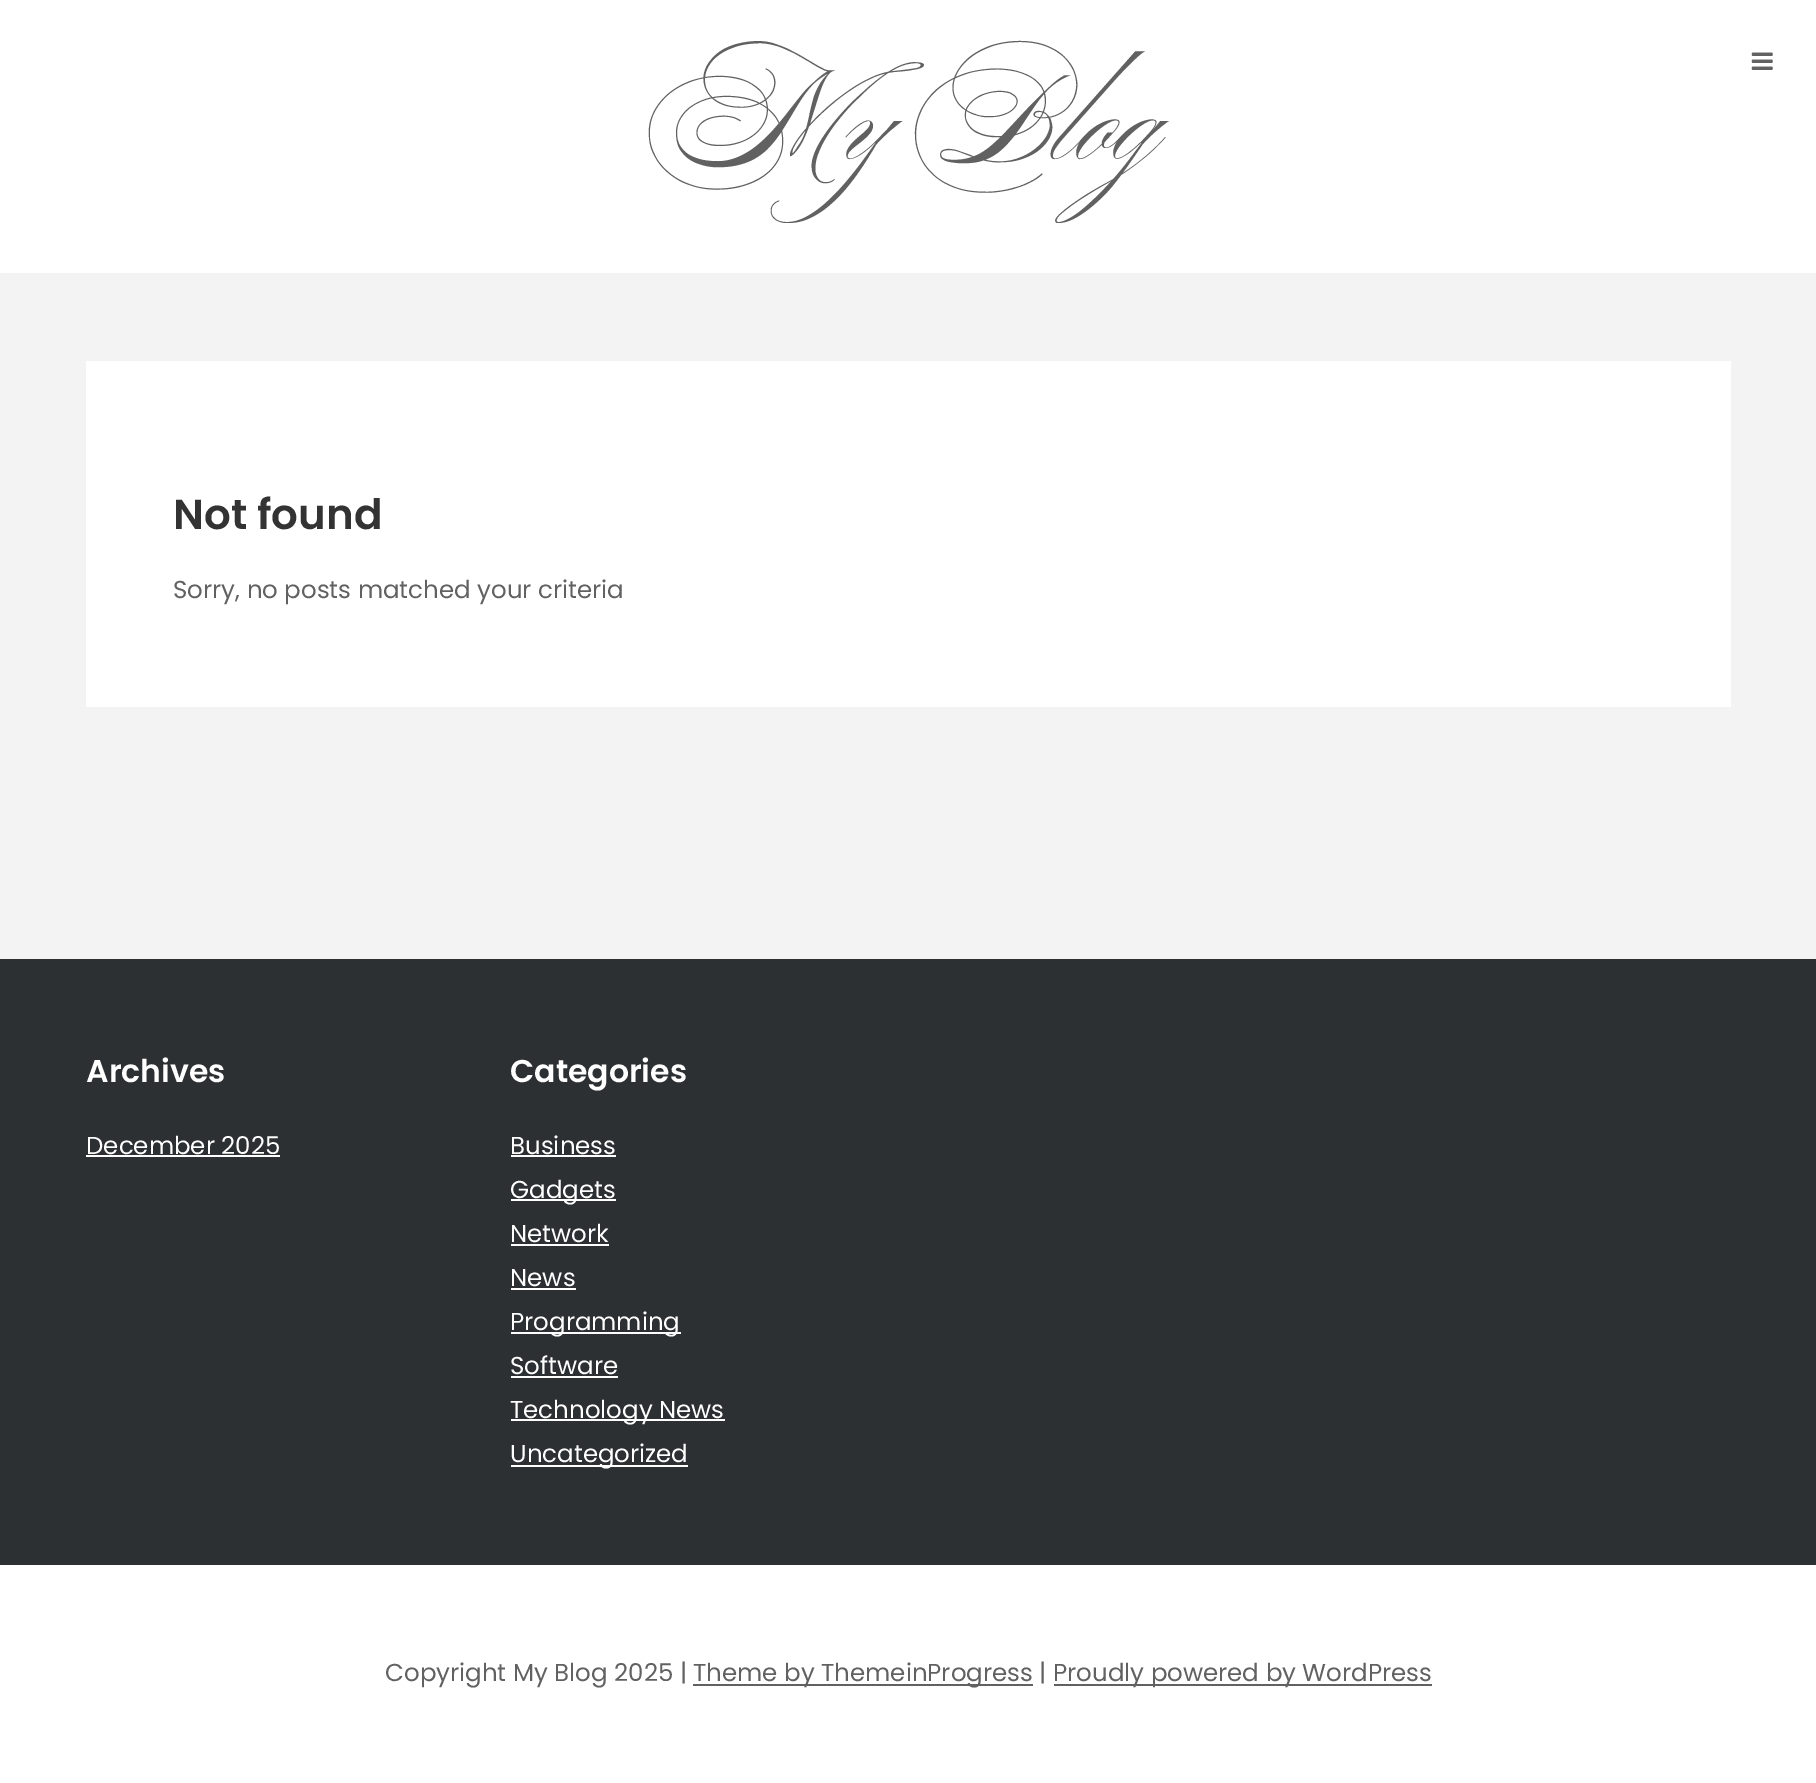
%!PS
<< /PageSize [1816 1783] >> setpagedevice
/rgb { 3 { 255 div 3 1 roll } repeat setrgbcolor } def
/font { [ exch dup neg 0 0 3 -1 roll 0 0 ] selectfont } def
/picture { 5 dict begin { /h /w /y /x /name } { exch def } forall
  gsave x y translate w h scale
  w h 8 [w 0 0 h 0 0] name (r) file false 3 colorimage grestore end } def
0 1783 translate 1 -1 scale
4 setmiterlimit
243 243 243 rgb
0 0 1816 1783 rectfill
255 255 255 rgb
0 0 1816 273 rectfill
(img/1.rgb) 1751 52 22 18 picture
[
  [86 361 1645 346 255 255 255]
  [0 1565 1816 218 255 255 255]
  [0 959 1816 606 45 48 50]
  [86 1155 194 2 255 255 255]
  [511 1155 105 2 255 255 255]
  [511 1199 105 2 255 255 255]
  [511 1244 98 2 255 255 255]
  [511 1288 65 2 255 255 255]
  [511 1332 170 2 255 255 255]
  [511 1376 107 2 255 255 255]
  [511 1419 214 2 255 255 255]
  [511 1465 177 2 255 255 255]
  [693 1684 340 2 97 97 97]
  [1054 1684 378 2 97 97 97]
] { aload pop rgb rectfill } forall
/Ballet-Regular 122.5 font
652 158 moveto (My Blog) show
/Poppins-SemiBold 42 font
51 51 51 rgb
173 529 moveto (Not found) show
/Poppins-Regular 24.5 font
97 97 97 rgb
173 598 moveto (Sorry, no posts matched your criteria) show
/Poppins-SemiBold 31.5 font
255 255 255 rgb
86 1082 moveto (Archives) show
/Poppins-Regular 24.5 font
86 1154 moveto (December 2025) show
/Poppins-SemiBold 31.5 font
510 1082 moveto (Categories) show
/Poppins-Regular 24.5 font
[
  [(Business) 510 1154]
  [(Gadgets) 510 1198]
  [(Network) 510 1242]
  [(News) 510 1286]
  [(Programming) 510 1330]
  [(Software) 510 1374]
  [(Technology News) 510 1418]
  [(Uncategorized) 510 1462]
] { aload pop moveto show } forall
97 97 97 rgb
[
  [(Copyright My Blog 2025 |) 385 1681]
  [(Theme by ThemeinProgress |) 693 1681]
  [(Proudly powered by WordPress) 1053 1681]
] { aload pop moveto show } forall
showpage
